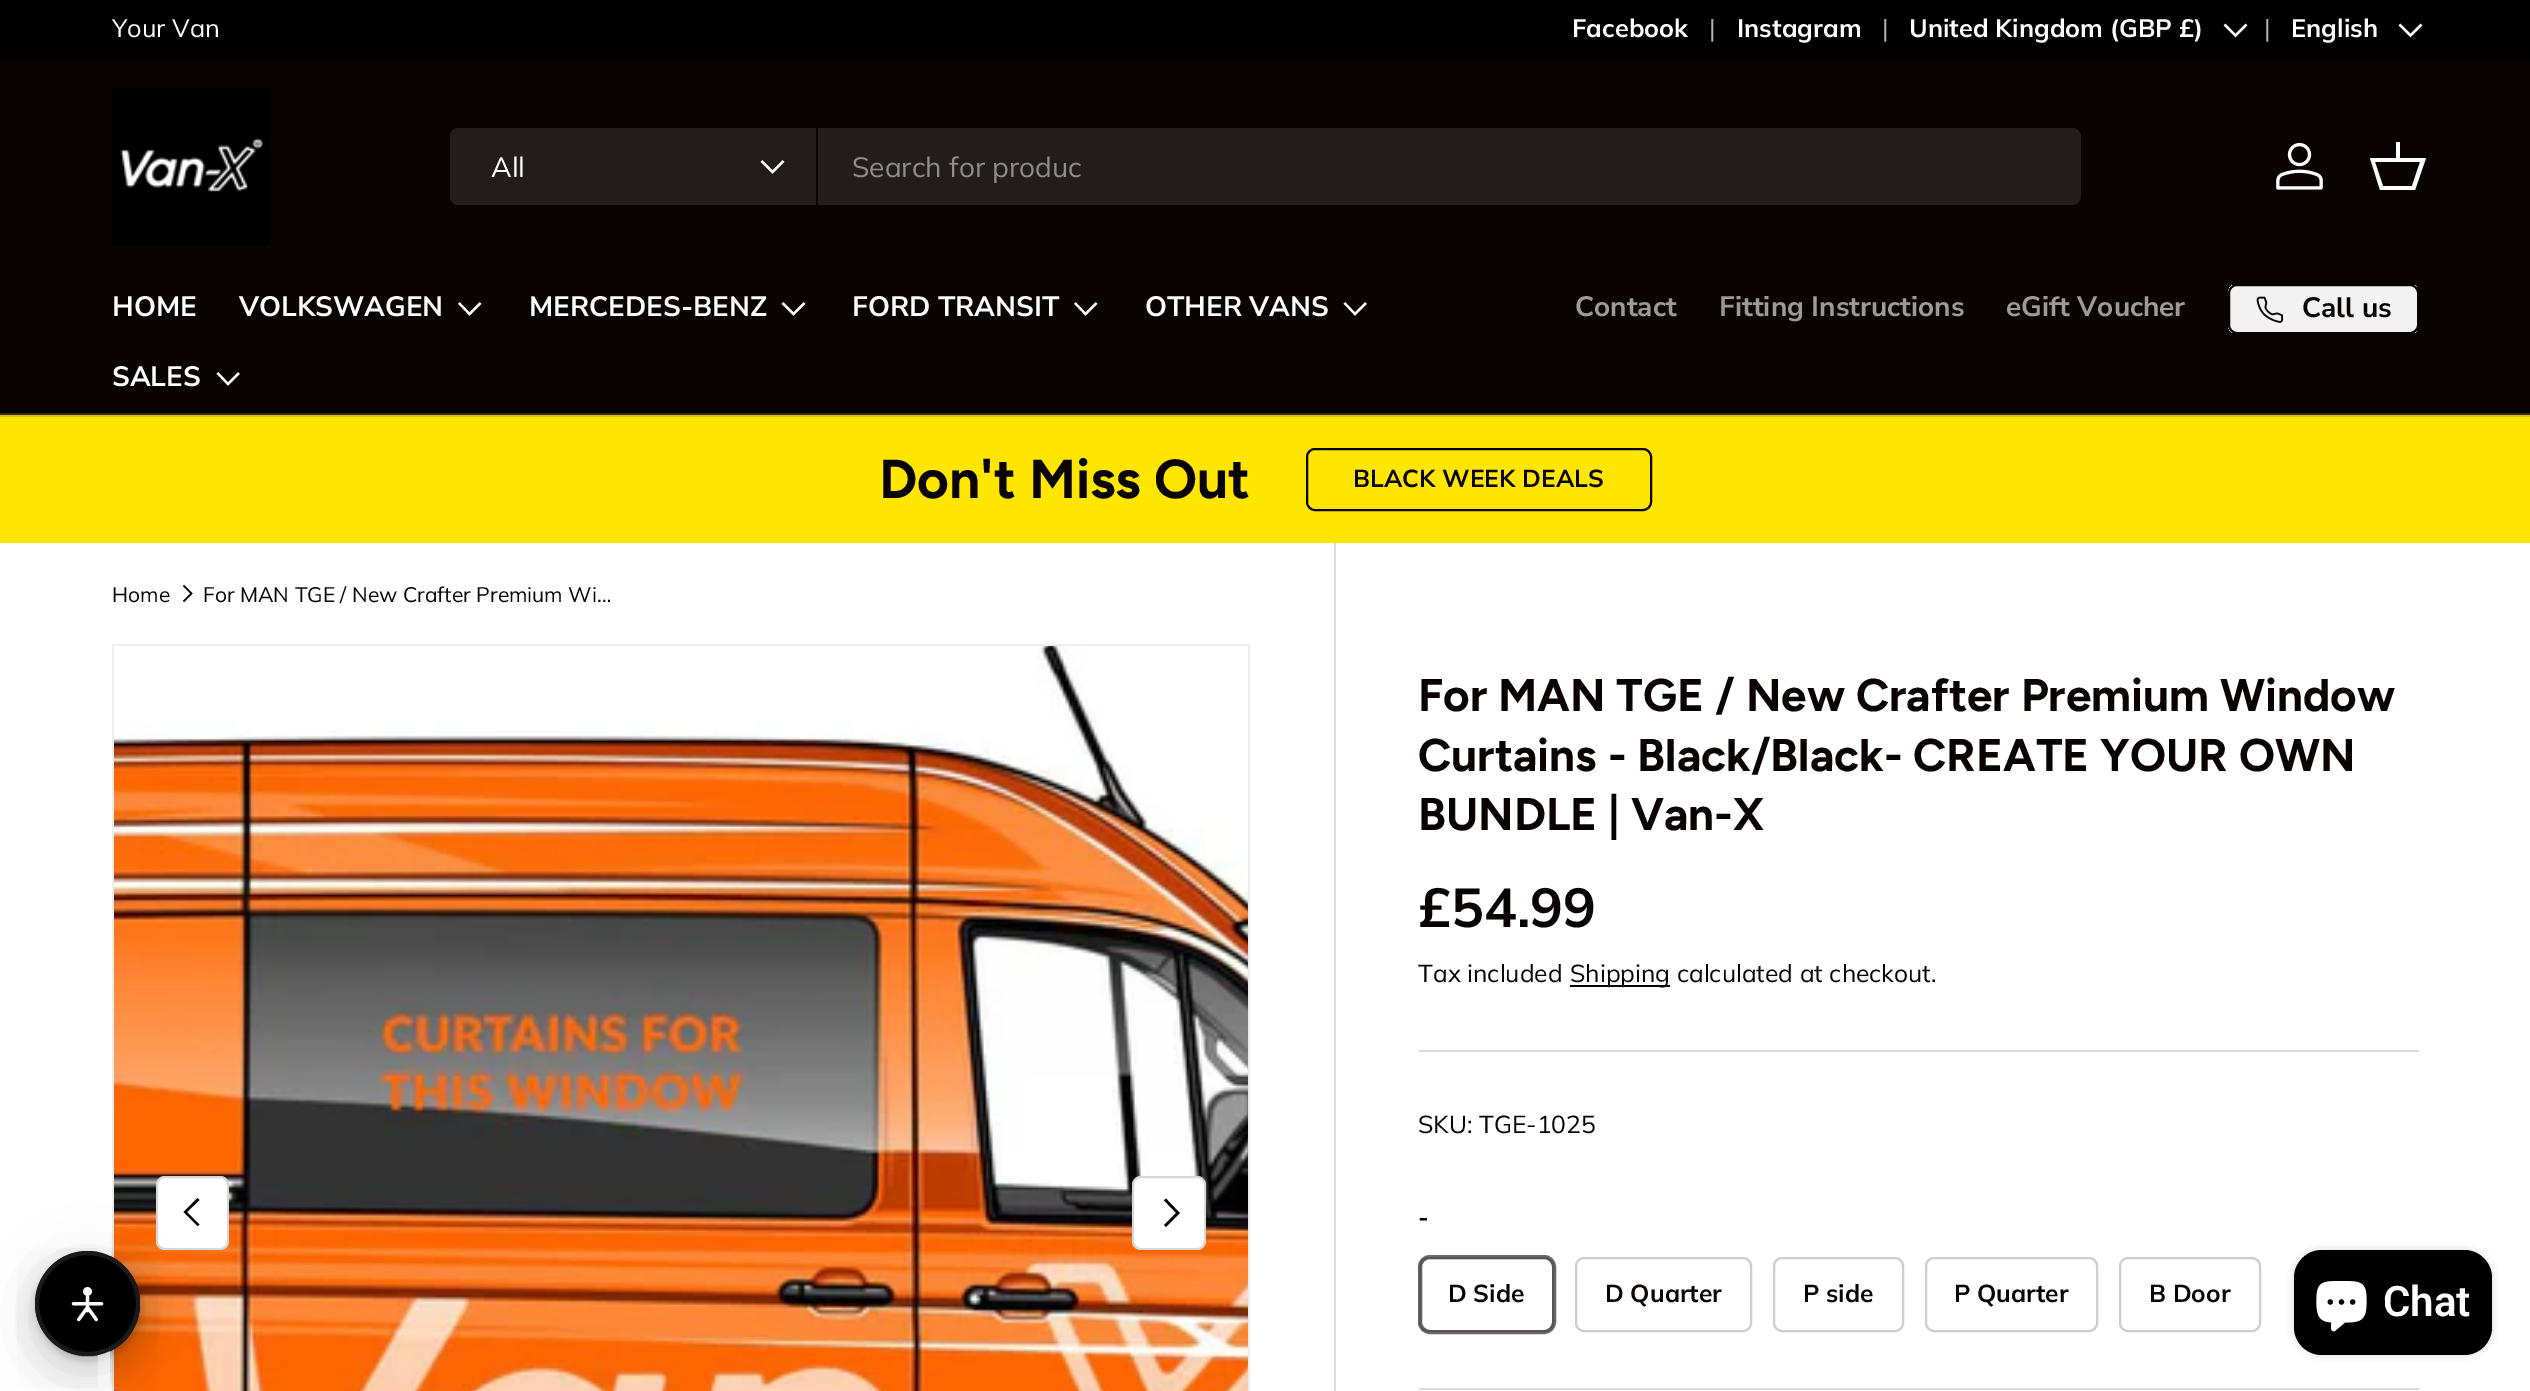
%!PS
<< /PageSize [2530 1391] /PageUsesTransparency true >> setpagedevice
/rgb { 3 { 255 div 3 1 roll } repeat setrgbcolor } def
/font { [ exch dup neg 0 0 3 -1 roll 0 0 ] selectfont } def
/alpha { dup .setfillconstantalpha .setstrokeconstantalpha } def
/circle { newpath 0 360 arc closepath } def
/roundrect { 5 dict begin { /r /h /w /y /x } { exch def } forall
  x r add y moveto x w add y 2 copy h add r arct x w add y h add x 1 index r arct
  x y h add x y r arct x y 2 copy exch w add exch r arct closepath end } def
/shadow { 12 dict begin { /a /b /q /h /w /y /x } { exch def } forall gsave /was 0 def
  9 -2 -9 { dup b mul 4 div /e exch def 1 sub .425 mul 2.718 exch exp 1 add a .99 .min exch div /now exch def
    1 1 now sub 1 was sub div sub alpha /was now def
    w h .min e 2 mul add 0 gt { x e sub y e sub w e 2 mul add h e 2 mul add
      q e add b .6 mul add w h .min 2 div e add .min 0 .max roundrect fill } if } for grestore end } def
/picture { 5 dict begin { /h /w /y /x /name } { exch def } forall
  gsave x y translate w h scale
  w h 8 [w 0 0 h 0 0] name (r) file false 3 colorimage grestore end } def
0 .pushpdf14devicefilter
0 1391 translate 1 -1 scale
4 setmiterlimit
255 255 255 rgb
0 0 2530 1391 rectfill
0 0 0 rgb
0 0 2530 60 rectfill
255 255 255 rgb
2.2 setlinewidth
2246.5 24.5 moveto 2235.5 35.5 lineto 2224.5 24.5 lineto stroke
2421.5 24.5 moveto 2410.5 35.5 lineto 2399.5 24.5 lineto stroke
9 3 2 rgb
0 60 2530 353 rectfill
46 41 40 rgb
0 413 2530 2 rectfill
(img/1.rgb) 112 87 158 158 picture
34 28 27 rgb
450 128 1631 77 9 roundrect fill
459 128 moveto 817 128 lineto 817 205 lineto 459 205 lineto 454 205 450 201 450 196 curveto 450 137 lineto 450 132 454 128 459 128 curveto closepath fill
9 3 2 rgb
816 128 2 77 rectfill
255 255 255 rgb
783.5 161 moveto 772.5 172 lineto 761.5 161 lineto stroke
(img/2.rgb) 2276 142 47 48 picture
2396 158 moveto 2396 142 lineto 2400 142 lineto 2400 158 lineto 2426 158 lineto 2415 190 lineto 2380 190 lineto 2370 158 lineto closepath 2375 162 moveto 2383 186 lineto 2412 186 lineto 2420 162 lineto closepath fill
480.5 303 moveto 469.5 314 lineto 459 303 lineto stroke
804.5 303 moveto 793.5 314 lineto 782.5 303 lineto stroke
1096.5 303 moveto 1085.5 314 lineto 1075 303 lineto stroke
1366 303 moveto 1355 314 lineto 1344.5 303 lineto stroke
239 373 moveto 228 384 lineto 217.5 373 lineto stroke
gsave
2228 284 191 50 9 roundrect clip newpath
gsave 2228 285 moveto 2417 285 lineto 2417 333 lineto 2228 333 lineto closepath clip newpath
<< /ShadingType 2 /ColorSpace /DeviceRGB /Coords [1866 242 2406 376] /Extend [true true] /Function << /FunctionType 3 /Domain [0 1] /Functions [<< /FunctionType 2 /Domain [0 1] /C0 [0.843 0.839 0.839] /C1 [0.843 0.839 0.839] /N 1 >> << /FunctionType 2 /Domain [0 1] /C0 [0.949 0.949 0.949] /C1 [0.949 0.949 0.949] /N 1 >>] /Bounds [0.6] /Encode [0 1 0 1] >> >> shfill grestore
grestore
9 3 2 rgb
2 setlinewidth
2229 285 189 48 8 roundrect stroke
(img/3.rgb) 2256 296 28 27 picture
255 230 1 rgb
0 417 2530 126 rectfill
218 196 1 rgb
0 415 2530 2 rectfill
9 3 2 rgb
1307 449 344 61 8 roundrect stroke
238 238 238 rgb
113 645 1136 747 rectstroke
(img/5.rgb) 17 1248 81 140 picture
(img/6.rgb) 110 646 1138 745 picture
(img/7.rgb) 110 1252 48 132 picture
0 0 0 rgb
35 1255 105 105 52.5 5 0.08 shadow
255 255 255 rgb
156 1176 73 74 9 roundrect fill
0.15 alpha
9 3 2 rgb
157 1177 71 72 8 roundrect stroke
1 alpha
183.5 1212 moveto 197.5 1198 lineto 199.5 1200 lineto 187 1212 lineto 199.5 1224.5 lineto 197.5 1226 lineto closepath fill
0 0 0 rgb
35 1265 105 105 52.5 28 0.12 shadow
87.5 1303.5 52.5 circle fill
0.1 alpha
255 255 255 rgb
4 setlinewidth
87.5 1303.5 50.5 circle stroke
1 alpha
(img/4.rgb) 71 1287 33 35 picture
9 3 2 rgb
1.6 setlinewidth
183.5 585.5 moveto 191.5 593.5 lineto 183.5 601.5 lineto stroke
255 255 255 rgb
1132 1176 74 74 9 roundrect fill
0.15 alpha
9 3 2 rgb
2 setlinewidth
1133 1177 72 72 8 roundrect stroke
1 alpha
2.6 setlinewidth
1165 1199.5 moveto 1178 1213 lineto 1165 1226 lineto stroke
[
  [1334 543 2 848 218 217 217]
  [1570 985 100 2 9 3 2]
  [1419 1050 1000 2 218 217 217]
] { aload pop rgb rectfill } forall
206 205 204 rgb
2 setlinewidth
1420 1258 133 73 8 roundrect stroke
0.6 alpha
9 3 2 rgb
4 setlinewidth
1420 1257 134 75 10 roundrect stroke
1 alpha
206 205 204 rgb
2 setlinewidth
1576 1258 175 73 8 roundrect stroke
1774 1258 129 73 8 roundrect stroke
1926 1258 171 73 8 roundrect stroke
2120 1258 140 73 8 roundrect stroke
218 217 217 rgb
1419 1388 1000 2 rectfill
0 0 0 rgb
2294 1250 198 105 28 4.5 0.15 shadow
2294 1250 198 105 28 roundrect fill
(img/8.rgb) 2316 1281 51 51 picture
/Muli-Regular 25.25 font
255 255 255 rgb
112 37 moveto (Your Van) show
/Muli-Bold 25.25 font
1572 37 moveto (Facebook) show
/Muli-Regular 25.25 font
179 179 179 rgb
1709 37 moveto (|) show
/Muli-Bold 25.25 font
255 255 255 rgb
1737 37 moveto (Instagram) show
/Muli-Regular 25.25 font
179 179 179 rgb
1882 37 moveto (|) show
/Muli-Bold 25.25 font
255 255 255 rgb
1909 37 moveto (United Kingdom \(GBP £\)) show
/Muli-Regular 25.25 font
179 179 179 rgb
2264 37 moveto (|) show
/Muli-Bold 25.25 font
255 255 255 rgb
2291 37 moveto (English) show
/Muli-Regular 28 font
491 177 moveto (All) show
145 142 141 rgb
852 177 moveto (Search for produc) show
/NunitoSans-Bold 28 font
255 255 255 rgb
[
  [(HOME) 112 316]
  [(VOLKSWAGEN) 239 316]
  [(MERCEDES-BENZ) 529 316]
  [(FORD TRANSIT) 852 316]
  [(OTHER VANS) 1145 316]
  [(SALES) 112 386]
] { aload pop moveto show } forall
157 154 154 rgb
[
  [(Contact) 1575 316]
  [(Fitting Instructions) 1719 316]
  [(eGift Voucher) 2006 316]
] { aload pop moveto show } forall
9 3 2 rgb
2302 317 moveto (Call us) show
/Figtree-Bold 54.75 font
879 498 moveto (Don't Miss Out) show
/Muli-Bold 24.6 font
1353 487 moveto (BLACK WEEK DEALS) show
/Muli-Regular 21 font
112 602 moveto (Home) show
203 602 moveto (For MAN TGE / New Crafter Premium Wi…) show
/Figtree-Bold 45.8 font
[
  [(For MAN TGE / New Crafter Premium Window) 1418 711]
  [(Curtains - Black/Black- CREATE YOUR OWN) 1418 771]
  [(BUNDLE | Van-X) 1418 830]
] { aload pop moveto show } forall
/Muli-Bold 54.75 font
1418 927 moveto (£54.99) show
/Muli-Regular 24.6 font
[
  [(Tax included) 1418 982]
  [(Shipping calculated at checkout.) 1570 982]
  [(SKU: TGE-1025) 1418 1133]
] { aload pop moveto show } forall
/Muli-Bold 24.6 font
[
  [(-) 1418 1226]
  [(D Side) 1448 1302]
  [(D Quarter) 1605 1302]
  [(P side) 1803 1302]
  [(P Quarter) 1954 1302]
  [(B Door) 2149 1302]
] { aload pop moveto show } forall
/Roboto-SemiBold 42 font
255 255 255 rgb
2383 1316 moveto (Chat) show
.poppdf14devicefilter showpage
